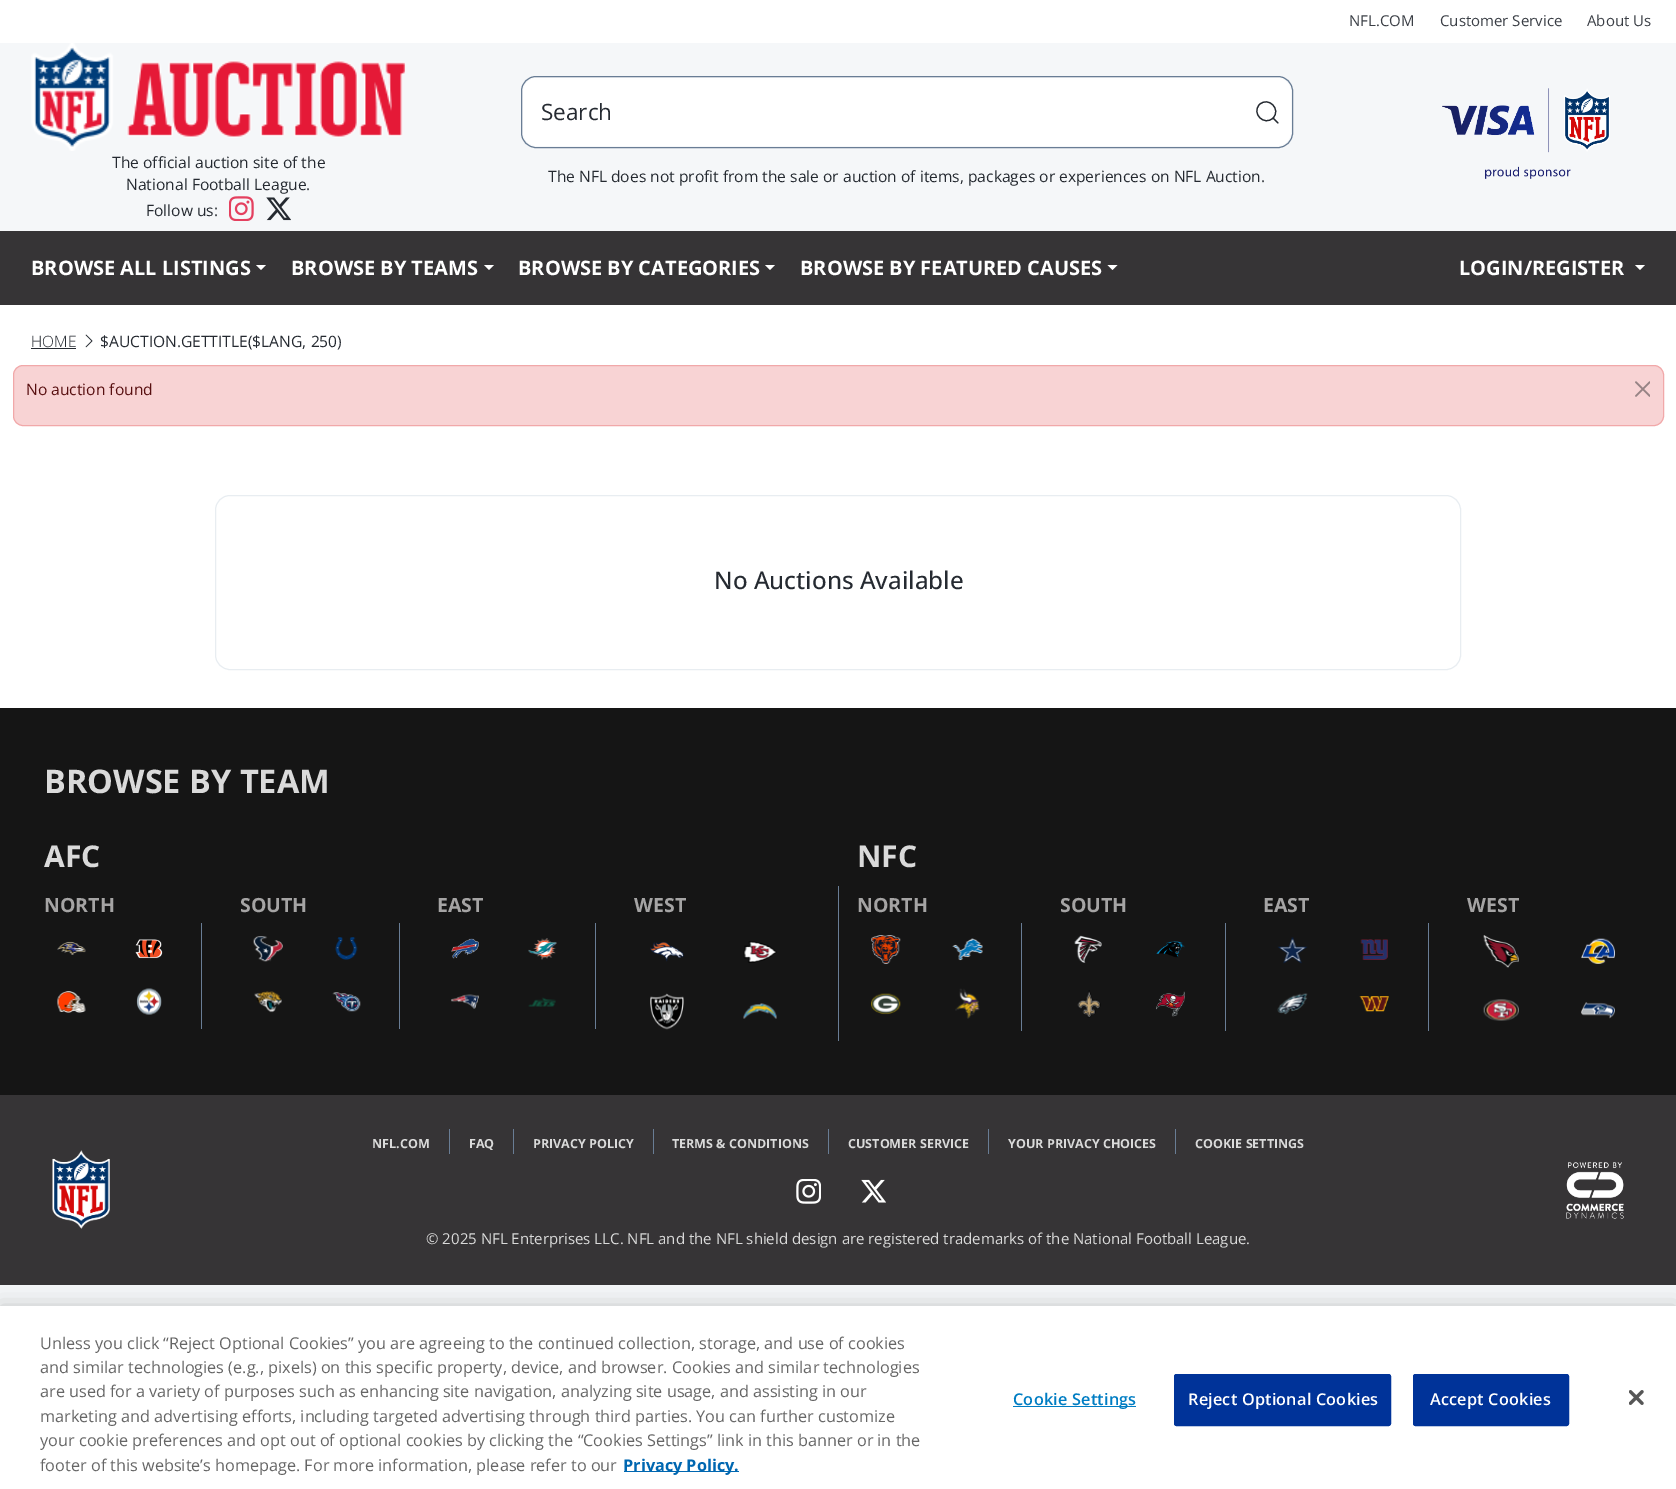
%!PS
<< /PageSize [1676 1489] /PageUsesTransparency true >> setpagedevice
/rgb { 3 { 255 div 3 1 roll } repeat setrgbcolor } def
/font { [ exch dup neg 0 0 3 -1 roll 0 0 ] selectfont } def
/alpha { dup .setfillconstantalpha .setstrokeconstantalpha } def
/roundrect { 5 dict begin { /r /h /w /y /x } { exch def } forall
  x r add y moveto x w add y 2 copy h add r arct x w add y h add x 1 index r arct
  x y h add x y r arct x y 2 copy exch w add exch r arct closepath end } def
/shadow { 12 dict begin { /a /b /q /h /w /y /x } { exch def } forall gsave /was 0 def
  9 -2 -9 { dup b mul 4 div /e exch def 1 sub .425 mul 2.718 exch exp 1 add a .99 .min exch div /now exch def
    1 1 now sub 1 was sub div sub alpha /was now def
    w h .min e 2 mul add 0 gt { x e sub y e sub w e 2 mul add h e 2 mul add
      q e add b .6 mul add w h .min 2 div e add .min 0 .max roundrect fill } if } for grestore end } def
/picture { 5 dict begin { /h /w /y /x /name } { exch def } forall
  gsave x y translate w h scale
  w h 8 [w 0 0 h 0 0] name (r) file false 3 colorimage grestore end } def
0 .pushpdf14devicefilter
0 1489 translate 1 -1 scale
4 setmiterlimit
245 247 249 rgb
0 0 1676 1489 rectfill
255 255 255 rgb
0 0 1676 43 rectfill
(img/1.rgb) 31 43 375 108 picture
(img/2.rgb) 229 196 25 25 picture
(img/3.rgb) 266 197 25 24 picture
523 78 768 68 14 roundrect fill
105 125 149 rgb
521.5 76.5 771 71 14.5 roundrect stroke
37 42 49 rgb
1.2 setlinewidth
1 setlinecap
1 setlinejoin
1273 118 moveto 1278 123 lineto 1273 118 lineto 1264.5 126.5 1251 113.5 1259.5 104.5 curveto 1268.5 96 1281.5 109.5 1273 118 curveto closepath stroke
(img/4.rgb) 1442 88 168 91 picture
54 52 54 rgb
0 231 1676 74 rectfill
255 255 255 rgb
256 265 moveto 266 265 lineto 261 270 lineto closepath fill
484 265 moveto 494 265 lineto 489 270 lineto closepath fill
765 265 moveto 775 265 lineto 770 270 lineto closepath fill
1107.5 265 moveto 1117.5 265 lineto 1112.5 270 lineto closepath fill
1635 265 moveto 1645 265 lineto 1640 270 lineto closepath fill
0 305 1676 403 rectfill
37 42 49 rgb
31 348 45 1 rectfill
(img/5.rgb) 85 334 8 14 picture
248 211 212 rgb
13.5 365.5 1650 60 9.5 roundrect gsave fill grestore
241 168 169 rgb
1 setlinewidth
0 setlinecap
0 setlinejoin
stroke
(img/6.rgb) 1635 381 15 16 picture
232 237 241 rgb
215.5 495.5 1245 174 14.5 roundrect stroke
[
  [0 1095 1676 190 54 52 54]
  [0 708 1676 387 21 21 21]
  [838 886 1 155 105 125 149]
  [201 923 1 106 105 125 149]
] { aload pop rgb rectfill } forall
(img/7.rgb) 57 941 29 14 picture
(img/8.rgb) 135 939 28 20 picture
(img/9.rgb) 57 991 29 22 picture
(img/10.rgb) 136 988 26 27 picture
399 923 1 106 rectfill
(img/11.rgb) 253 936 30 26 picture
(img/12.rgb) 335 937 23 23 picture
(img/13.rgb) 254 991 28 22 picture
(img/14.rgb) 332 992 29 20 picture
595 923 1 106 rectfill
(img/15.rgb) 451 938 28 21 picture
(img/16.rgb) 528 938 29 22 picture
(img/17.rgb) 451 994 28 15 picture
(img/18.rgb) 528 997 28 10 picture
(img/19.rgb) 650 942 34 20 picture
(img/20.rgb) 743 941 34 22 picture
(img/21.rgb) 650 993 34 37 picture
(img/22.rgb) 743 1003 34 16 picture
1021 923 1 108 rectfill
(img/23.rgb) 871 935 30 29 picture
(img/24.rgb) 952 938 31 23 picture
(img/25.rgb) 871 993 30 22 picture
(img/26.rgb) 955 988 25 31 picture
1225 923 1 108 rectfill
(img/27.rgb) 1074 935 28 28 picture
(img/28.rgb) 1156 941 29 17 picture
(img/29.rgb) 1077 990 24 28 picture
(img/30.rgb) 1156 991 29 26 picture
1428 923 1 108 rectfill
(img/31.rgb) 1277 937 31 27 picture
(img/32.rgb) 1360 939 28 21 picture
(img/33.rgb) 1277 993 31 22 picture
(img/34.rgb) 1359 996 30 16 picture
(img/35.rgb) 1483 935 36 33 picture
(img/36.rgb) 1581 938 34 26 picture
(img/37.rgb) 1483 999 36 22 picture
(img/38.rgb) 1581 1002 34 17 picture
(img/39.rgb) 52 1150 58 79 picture
[
  [449 1129 1 25 105 125 149]
  [513 1129 1 25 105 125 149]
  [653 1129 1 25 105 125 149]
  [828 1129 1 25 105 125 149]
  [988 1129 1 25 105 125 149]
  [1175 1129 1 25 105 125 149]
] { aload pop rgb rectfill } forall
(img/40.rgb) 796 1179 25 25 picture
(img/41.rgb) 861 1179 25 24 picture
(img/42.rgb) 1566 1162 58 57 picture
0 0 0 rgb
0 1306 1676 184 0 11 0.2 shadow
[
  [0 1306 1676 183 255 255 255]
  [624 1471 115 1 0 103 177]
  [1013 1406 123 1 0 125 195]
] { aload pop rgb rectfill } forall
0 51 153 rgb
1174.5 1374.5 216 51 2 roundrect gsave fill grestore
stroke
1413.5 1374.5 155 51 2 roundrect gsave fill grestore
stroke
(img/43.rgb) 1629 1390 15 15 picture
/OpenSans-Regular 15 font
59 63 70 rgb
[
  [(NFL.COM) 1349 26]
  [(Customer Service) 1440 26]
  [(About Us) 1587 26]
] { aload pop moveto show } forall
/OpenSans-Regular 15.6 font
37 42 49 rgb
[
  [(The official auction site of the) 112 168]
  [(National Football League.) 126 190]
  [(Follow us:) 146 216]
] { aload pop moveto show } forall
/OpenSans-Regular 22.5 font
541 120 moveto (Search) show
/OpenSans-Regular 15.6 font
548 182 moveto (The NFL does not profit from the sale or auction of items, packages or experiences on NFL Auction.) show
/OpenSans-Bold 20 font
255 255 255 rgb
[
  [(BROWSE ALL LISTINGS) 31 275]
  [(BROWSE BY TEAMS) 291 275]
  [(BROWSE BY CATEGORIES) 518 275]
  [(BROWSE BY FEATURED CAUSES) 800 275]
  [(LOGIN/REGISTER) 1459 275]
] { aload pop moveto show } forall
/OpenSans-Light 15.6 font
37 42 49 rgb
31 347 moveto (HOME) show
/OpenSans-Regular 15.6 font
100 347 moveto ($AUCTION.GETTITLE\($LANG, 250\)) show
88 15 16 rgb
26 395 moveto (No auction found) show
/OpenSans-Medium 24.25 font
37 42 49 rgb
714 589 moveto (No Auctions Available) show
/OpenSans-Bold 32.5 font
218 218 218 rgb
44 793 moveto (BROWSE BY TEAM) show
/OpenSans-Bold 30 font
44 867 moveto (AFC) show
/OpenSans-Bold 19.5 font
165 164 164 rgb
[
  [(NORTH) 44 912]
  [(SOUTH) 240 912]
  [(EAST) 437 912]
  [(WEST) 634 912]
] { aload pop moveto show } forall
/OpenSans-Bold 30 font
218 218 218 rgb
857 867 moveto (NFC) show
/OpenSans-Bold 19.5 font
165 164 164 rgb
[
  [(NORTH) 857 912]
  [(SOUTH) 1060 912]
  [(EAST) 1263 912]
  [(WEST) 1467 912]
] { aload pop moveto show } forall
/OpenSans-Bold 12.5 font
218 218 218 rgb
[
  [(NFL.COM) 372 1148]
  [(FAQ) 469 1148]
  [(PRIVACY POLICY) 533 1148]
  [(TERMS & CONDITIONS) 672 1148]
  [(CUSTOMER SERVICE) 848 1148]
  [(YOUR PRIVACY CHOICES) 1008 1148]
  [(COOKIE SETTINGS) 1195 1148]
] { aload pop moveto show } forall
/OpenSans-Regular 15 font
426 1244 moveto (© 2025 NFL Enterprises LLC. NFL and the NFL shield design are registered trademarks of the National Football League.) show
/OpenSans-Regular 16.25 font
102 102 102 rgb
[
  [(Unless you click “Reject Optional Cookies” you are agreeing to the continued collection, storage, and use of cookies) 40 1349]
  [(and similar technologies \(e.g., pixels\) on this specific property, device, and browser. Cookies and similar technologies) 40 1373]
  [(are used for a variety of purposes such as enhancing site navigation, analyzing site usage, and assisting in our) 40 1397]
  [(marketing and advertising efforts, including targeted advertising through third parties. You can further customize) 40 1422]
  [(your cookie preferences and opt out of optional cookies by clicking the “Cookies Settings” link in this banner or in the) 40 1446]
  [(footer of this website’s homepage. For more information, please refer to our) 40 1471]
] { aload pop moveto show } forall
/OpenSans-Bold 16.25 font
0 103 177 rgb
623 1471 moveto (Privacy Policy.) show
/OpenSans-SemiBold 16.25 font
0 125 195 rgb
1013 1405 moveto 0.2 0 (Cookie Settings) ashow
255 255 255 rgb
1188 1405 moveto 0.2 0 (Reject Optional Cookies) ashow
1430 1405 moveto 0.2 0 (Accept Cookies) ashow
.poppdf14devicefilter showpage
